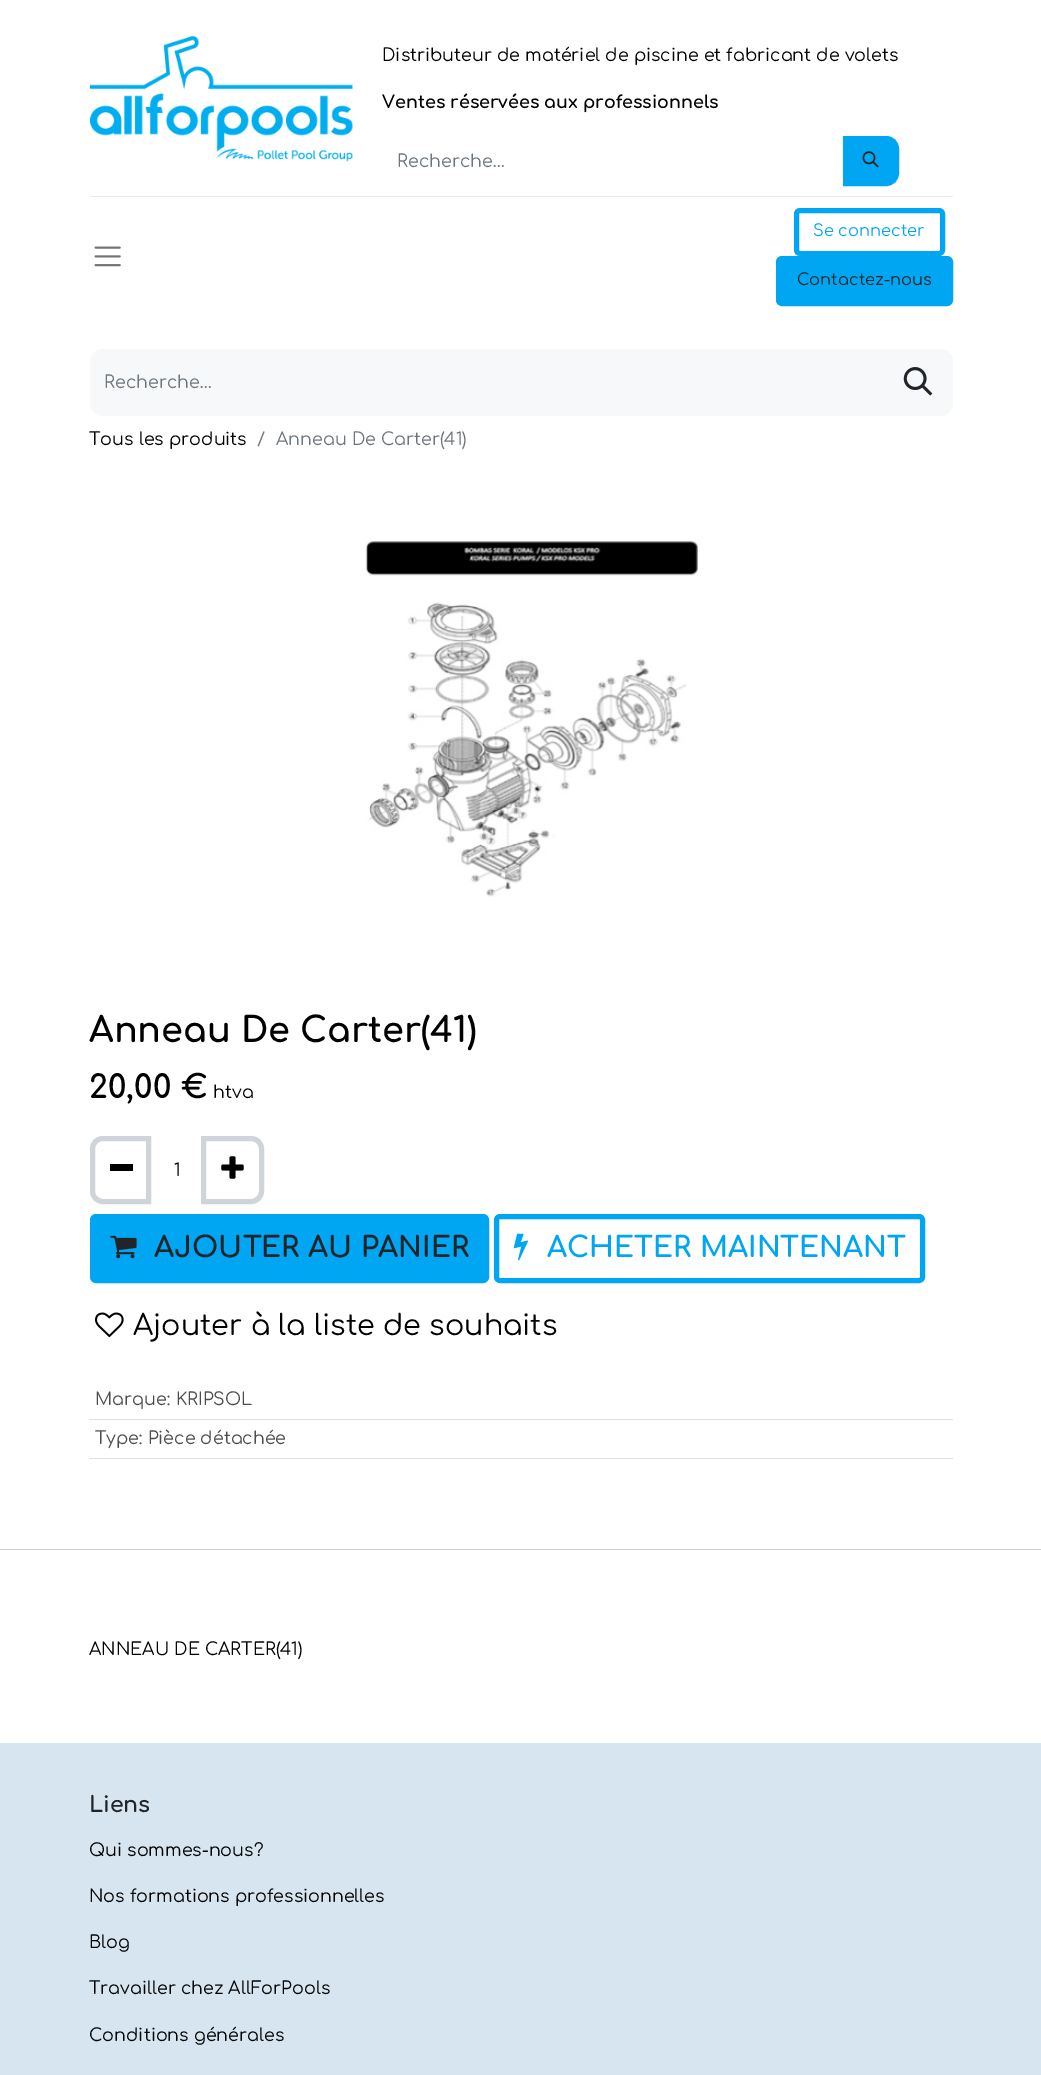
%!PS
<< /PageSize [1041 2075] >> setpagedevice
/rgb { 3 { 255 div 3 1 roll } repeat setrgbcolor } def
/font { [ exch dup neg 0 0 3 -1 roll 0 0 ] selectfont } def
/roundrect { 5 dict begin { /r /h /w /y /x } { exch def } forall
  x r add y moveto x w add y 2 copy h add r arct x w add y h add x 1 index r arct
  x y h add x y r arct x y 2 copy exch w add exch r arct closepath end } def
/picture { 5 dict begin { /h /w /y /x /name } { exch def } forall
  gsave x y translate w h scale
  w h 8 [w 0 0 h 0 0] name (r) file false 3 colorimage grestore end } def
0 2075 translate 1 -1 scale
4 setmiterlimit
255 255 255 rgb
0 0 1041 2075 rectfill
(img/1.rgb) 90 36 263 126 picture
0 166 242 rgb
845.5 138.5 moveto 886 138.5 lineto 892 138.5 896.5 143 896.5 149 curveto 896.5 173 lineto 896.5 179 892 183.5 886 183.5 curveto 845.5 183.5 lineto closepath gsave fill grestore
5 setlinewidth
stroke
(img/2.rgb) 862 151 17 17 picture
233 236 239 rgb
90 196 863 1 rectfill
(img/3.rgb) 94 246 27 21 picture
0 166 242 rgb
796.5 210.5 146 43 3.5 roundrect stroke
778.5 258.5 172 45 3.5 roundrect gsave fill grestore
stroke
246 248 249 rgb
103 349 moveto 884 349 lineto 884 416 lineto 103 416 lineto 96 416 90 410 90 403 curveto 90 362 lineto 90 355 96 349 103 349 curveto closepath fill
884 349 moveto 940 349 lineto 947 349 953 355 953 362 curveto 953 403 lineto 953 410 947 416 940 416 curveto 884 416 lineto closepath fill
(img/4.rgb) 903 367 30 29 picture
(img/5.rgb) 365 541 333 356 picture
206 212 218 rgb
103 1138.5 moveto 148.5 1138.5 lineto 148.5 1201.5 lineto 103 1201.5 lineto 97 1201.5 92.5 1197 92.5 1191 curveto 92.5 1149 lineto 92.5 1143 97 1138.5 103 1138.5 curveto closepath stroke
0 0 0 rgb
110 1164 23 7 rectfill
206 212 218 rgb
203.5 1138.5 moveto 251 1138.5 lineto 257 1138.5 261.5 1143 261.5 1149 curveto 261.5 1191 lineto 261.5 1197 257 1201.5 251 1201.5 curveto 203.5 1201.5 lineto closepath stroke
(img/6.rgb) 221 1156 23 23 picture
0 166 242 rgb
92.5 1216.5 394 64 3.5 roundrect gsave fill grestore
stroke
(img/7.rgb) 110 1235 27 24 picture
496.5 1216.5 426 64 3.5 roundrect stroke
(img/8.rgb) 513 1233 15 28 picture
(img/9.rgb) 95 1312 29 25 picture
[
  [89 1419 864 1 222 226 230]
  [89 1458 864 1 222 226 230]
  [0 1549 1041 1 206 212 218]
  [0 1743 1041 332 214 229 239]
] { aload pop rgb rectfill } forall
/Comfortaa-Regular 17.5 font
0 0 0 rgb
382 61 moveto (Distributeur de matériel de piscine et fabricant de volets) show
/Comfortaa-Bold 17.5 font
382 108 moveto (Ventes réservées aux professionnels) show
/Comfortaa-Regular 17.5 font
108 117 125 rgb
397 167 moveto (Recherche…) show
/Comfortaa-Regular 16.25 font
0 166 242 rgb
813 236 moveto (Se connecter) show
33 37 41 rgb
797 285 moveto (Contactez-nous) show
/Comfortaa-Regular 17.5 font
108 117 125 rgb
104 388 moveto (Recherche…) show
0 0 0 rgb
89 445 moveto (Tous les produits) show
108 117 125 rgb
257 445 moveto (/) show
276 445 moveto (Anneau De Carter\(41\)) show
/Comfortaa-Bold 35 font
0 0 0 rgb
89 1042 moveto (Anneau De Carter\(41\)) show
/Comfortaa-Bold 32 font
89 1098 moveto (20,00 €) show
/Comfortaa-Regular 17.5 font
213 1098 moveto (htva) show
174 1176 moveto (1) show
/Comfortaa-Bold 28.6 font
33 37 41 rgb
154 1257 moveto (AJOUTER AU PANIER) show
0 166 242 rgb
547 1257 moveto (ACHETER MAINTENANT) show
/Comfortaa-Regular 28.6 font
0 0 0 rgb
133 1335 moveto (Ajouter à la liste de souhaits) show
/Comfortaa-Regular 17.5 font
77 77 77 rgb
95 1405 moveto (Marque: KRIPSOL) show
95 1444 moveto (Type: Pièce détachée) show
0 0 0 rgb
89 1655 moveto (ANNEAU DE CARTER\(41\)) show
/Comfortaa-Bold 22 font
33 37 41 rgb
89 1812 moveto (Liens) show
/Comfortaa-Regular 17.5 font
0 0 0 rgb
[
  [(Qui sommes-nous?) 89 1856]
  [(Nos formations professionnelles) 89 1902]
  [(Blog) 89 1948]
  [(Travailler chez AllForPools) 89 1994]
  [(Conditions générales) 89 2041]
] { aload pop moveto show } forall
showpage
